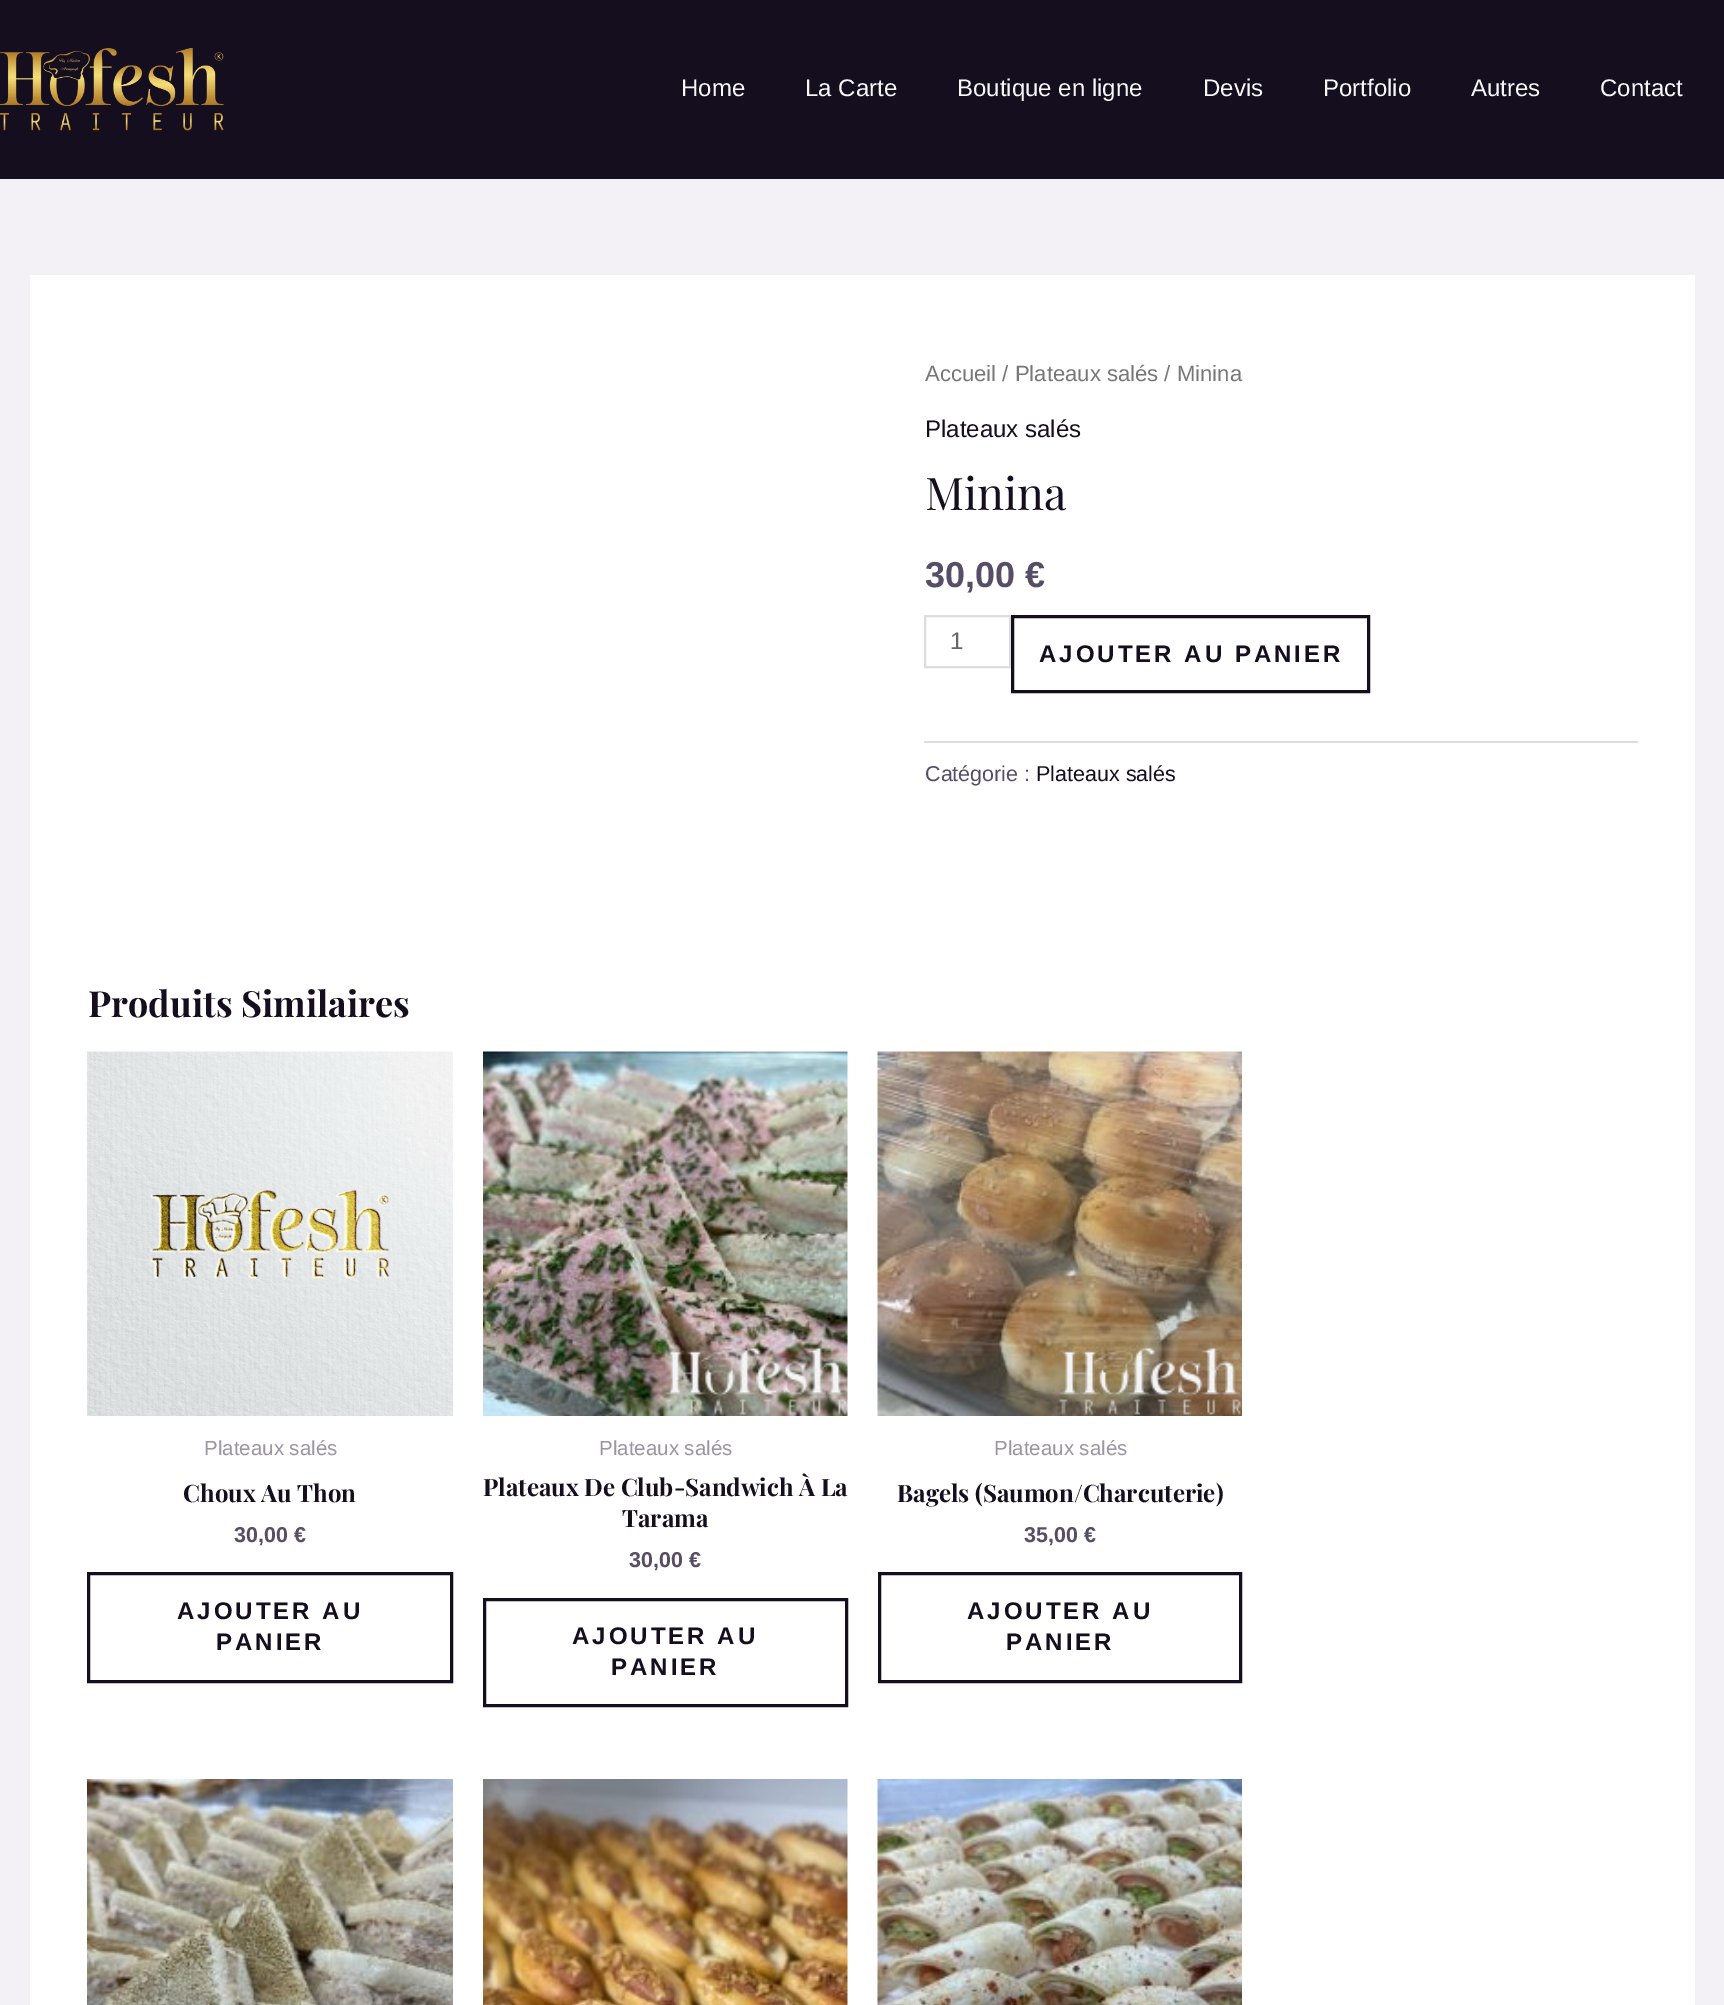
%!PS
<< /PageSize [1724 2005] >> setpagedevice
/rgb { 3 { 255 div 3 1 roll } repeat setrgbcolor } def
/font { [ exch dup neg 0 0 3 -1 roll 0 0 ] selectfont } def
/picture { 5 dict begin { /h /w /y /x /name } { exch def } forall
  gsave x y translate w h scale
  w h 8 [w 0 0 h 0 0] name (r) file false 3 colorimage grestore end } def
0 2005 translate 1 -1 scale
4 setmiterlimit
243 241 246 rgb
0 0 1724 2005 rectfill
21 14 31 rgb
0 0 1724 179 rectfill
(img/1.rgb) 0 48 224 83 picture
255 255 255 rgb
30 275 1665 1730 rectfill
221 221 221 rgb
2 setlinewidth
925 616 85 51 rectstroke
21 14 31 rgb
3 setlinewidth
1012.5 616.5 356 75 rectstroke
221 221 221 rgb
924 741 714 2 rectfill
(img/2.rgb) 87 1051 366 365 picture
21 14 31 rgb
88.5 1573.5 363 108 rectstroke
(img/3.rgb) 483 1051 365 365 picture
484.5 1599.5 362 106 rectstroke
(img/4.rgb) 877 1051 365 365 picture
879.5 1573.5 361 108 rectstroke
(img/5.rgb) 87 1779 366 226 picture
(img/6.rgb) 483 1779 365 226 picture
(img/7.rgb) 877 1779 365 226 picture
/LiberationSans-Regular 24 font
248 248 248 rgb
[
  [(Home) 681 96]
  [(La Carte) 805 96]
  [(Boutique en ligne) 957 96]
  [(Devis) 1203 96]
  [(Portfolio) 1323 96]
  [(Autres) 1471 96]
  [(Contact) 1600 96]
] { aload pop moveto show } forall
/LiberationSans-Regular 22.1 font
119 119 119 rgb
925 381 moveto (Accueil / Plateaux salés / Minina) show
/LiberationSans-Regular 24 font
21 14 31 rgb
925 437 moveto (Plateaux salés) show
/PlayfairDisplay-Regular 45 font
925 510 moveto (Minina) show
/LiberationSans-Bold 36 font
88 77 102 rgb
925 587 moveto (30,00 €) show
/LiberationSans-Regular 24 font
102 102 102 rgb
950 649 moveto (1) show
/LiberationSans-Bold 24 font
21 14 31 rgb
1039 662 moveto 3 0 (AJOUTER AU PANIER) ashow
/LiberationSans-Regular 21.5 font
88 77 102 rgb
925 781 moveto (Catégorie :) show
21 14 31 rgb
1036 781 moveto (Plateaux salés) show
/PlayfairDisplay-Bold 36 font
88 1017 moveto (Produits Similaires) show
/LiberationSans-Regular 20.5 font
155 148 163 rgb
204 1455 moveto (Plateaux salés) show
/PlayfairDisplay-Bold 24 font
21 14 31 rgb
183 1502 moveto (Choux Au Thon) show
/LiberationSans-Bold 21.5 font
88 77 102 rgb
234 1542 moveto (30,00 €) show
/LiberationSans-Bold 24 font
21 14 31 rgb
177 1619 moveto 3 0 (AJOUTER AU) ashow
216 1650 moveto 3 0 (PANIER) ashow
/LiberationSans-Regular 20.5 font
155 148 163 rgb
599 1455 moveto (Plateaux salés) show
/PlayfairDisplay-Bold 24 font
21 14 31 rgb
483 1496 moveto (Plateaux De Club-Sandwich À La) show
622 1527 moveto (Tarama) show
/LiberationSans-Bold 21.5 font
88 77 102 rgb
629 1567 moveto (30,00 €) show
/LiberationSans-Bold 24 font
21 14 31 rgb
572 1644 moveto 3 0 (AJOUTER AU) ashow
611 1675 moveto 3 0 (PANIER) ashow
/LiberationSans-Regular 20.5 font
155 148 163 rgb
994 1455 moveto (Plateaux salés) show
/PlayfairDisplay-Bold 24 font
21 14 31 rgb
897 1502 moveto (Bagels \(Saumon/Charcuterie\)) show
/LiberationSans-Bold 21.5 font
88 77 102 rgb
1024 1542 moveto (35,00 €) show
/LiberationSans-Bold 24 font
21 14 31 rgb
967 1619 moveto 3 0 (AJOUTER AU) ashow
1006 1650 moveto 3 0 (PANIER) ashow
showpage
